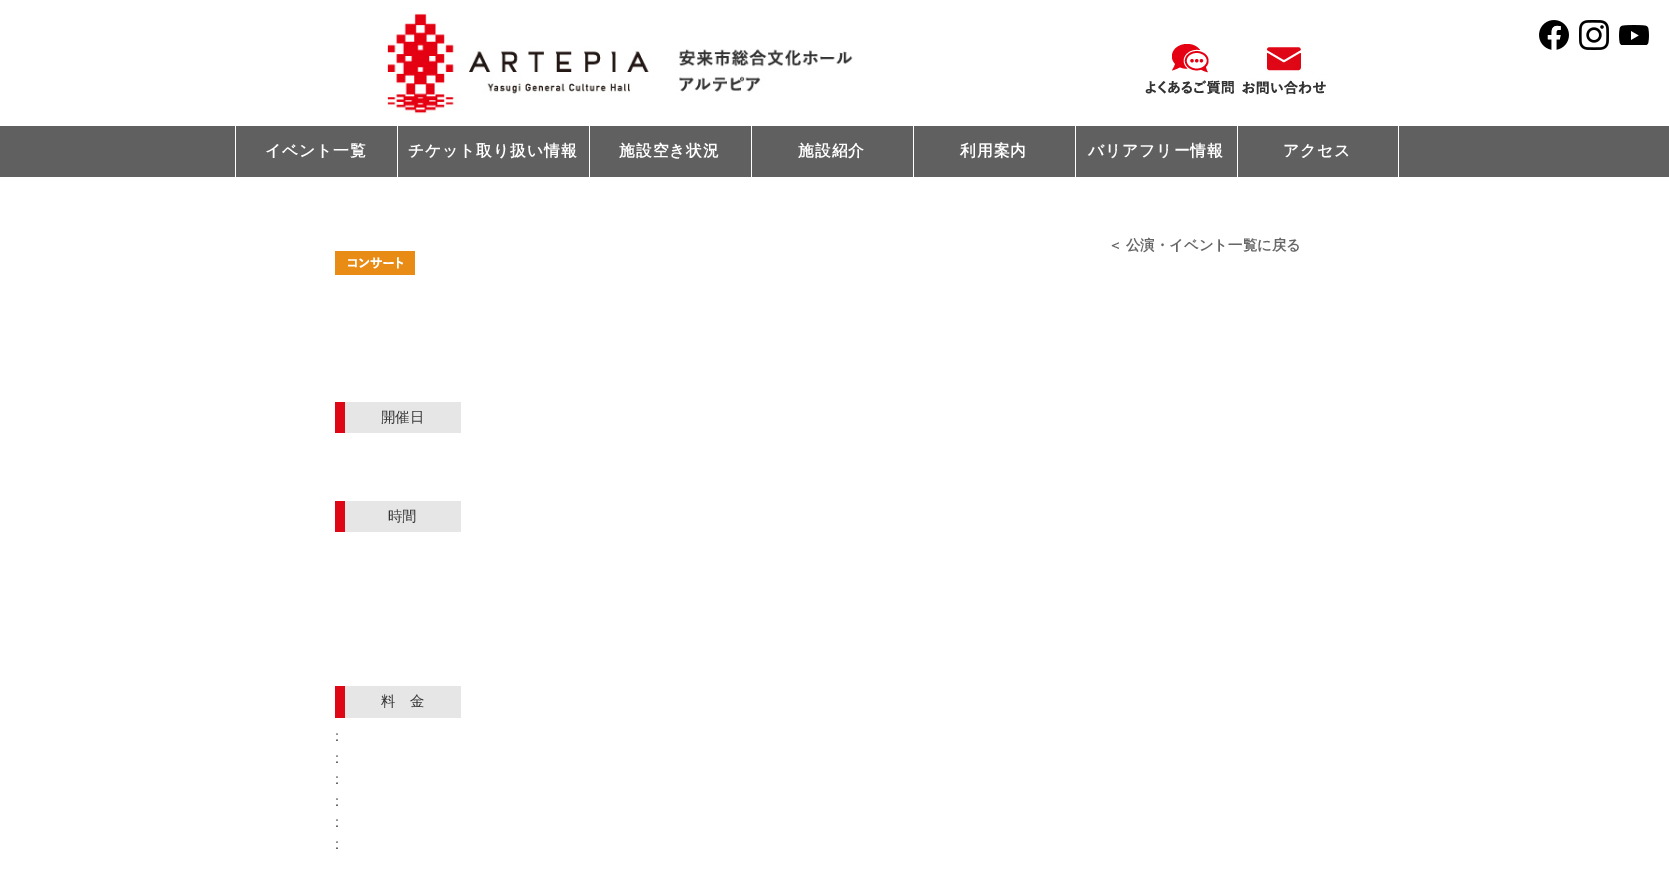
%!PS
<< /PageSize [1669 889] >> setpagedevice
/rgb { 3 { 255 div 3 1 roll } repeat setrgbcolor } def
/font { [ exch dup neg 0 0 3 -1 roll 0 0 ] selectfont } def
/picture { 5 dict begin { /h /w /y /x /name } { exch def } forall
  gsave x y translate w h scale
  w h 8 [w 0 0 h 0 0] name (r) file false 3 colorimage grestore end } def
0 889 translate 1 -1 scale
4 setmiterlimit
255 255 255 rgb
0 0 1669 889 rectfill
(img/1.rgb) 385 13 468 102 picture
(img/2.rgb) 1145 44 89 50 picture
(img/3.rgb) 1242 42 84 53 picture
(img/4.rgb) 1539 20 30 30 picture
(img/5.rgb) 1579 20 30 30 picture
(img/6.rgb) 1619 25 30 20 picture
[
  [0 126 1669 51 96 96 96]
  [235 126 1 51 255 255 255]
  [397 126 1 51 255 255 255]
  [589 126 1 51 255 255 255]
  [751 126 1 51 255 255 255]
  [913 126 1 51 255 255 255]
  [1075 126 1 51 255 255 255]
  [1398 126 1 51 255 255 255]
  [1237 126 1 51 255 255 255]
] { aload pop rgb rectfill } forall
(img/7.rgb) 335 251 80 24 picture
[
  [345 402 116 31 230 230 230]
  [335 402 10 31 223 6 21]
  [345 501 116 31 230 230 230]
  [335 501 10 31 223 6 21]
  [345 686 116 32 230 230 230]
  [335 686 10 32 223 6 21]
] { aload pop rgb rectfill } forall
/WenQuanYiZenHei-Bold 15.75 font
255 255 255 rgb
265 156 moveto 1 0 (イベント一覧) ashow
408 156 moveto 1 0 (チケット取り扱い情報) ashow
619 156 moveto 1 0 (施設空き状況) ashow
798 156 moveto 1 0 (施設紹介) ashow
960 156 moveto 1 0 (利用案内) ashow
1088 156 moveto 1 0 (バリアフリー情報) ashow
1283 156 moveto 1 0 (アクセス) ashow
/WenQuanYiZenHei-Bold 14.4 font
102 102 102 rgb
1108 250 moveto (＜) show
1126 250 moveto (公演・イベント一覧に戻る) show
/WenQuanYiZenHei-Medium 14.4 font
51 51 51 rgb
[
  [(開催日) 381 422]
  [(時間) 388 521]
  [(料　金) 381 706]
] { aload pop moveto show } forall
/LiberationSans-Regular 14.4 font
[
  [(:) 335 741]
  [(:) 335 763]
  [(:) 335 784]
  [(:) 335 806]
  [(:) 335 827]
  [(:) 335 849]
] { aload pop moveto show } forall
showpage
